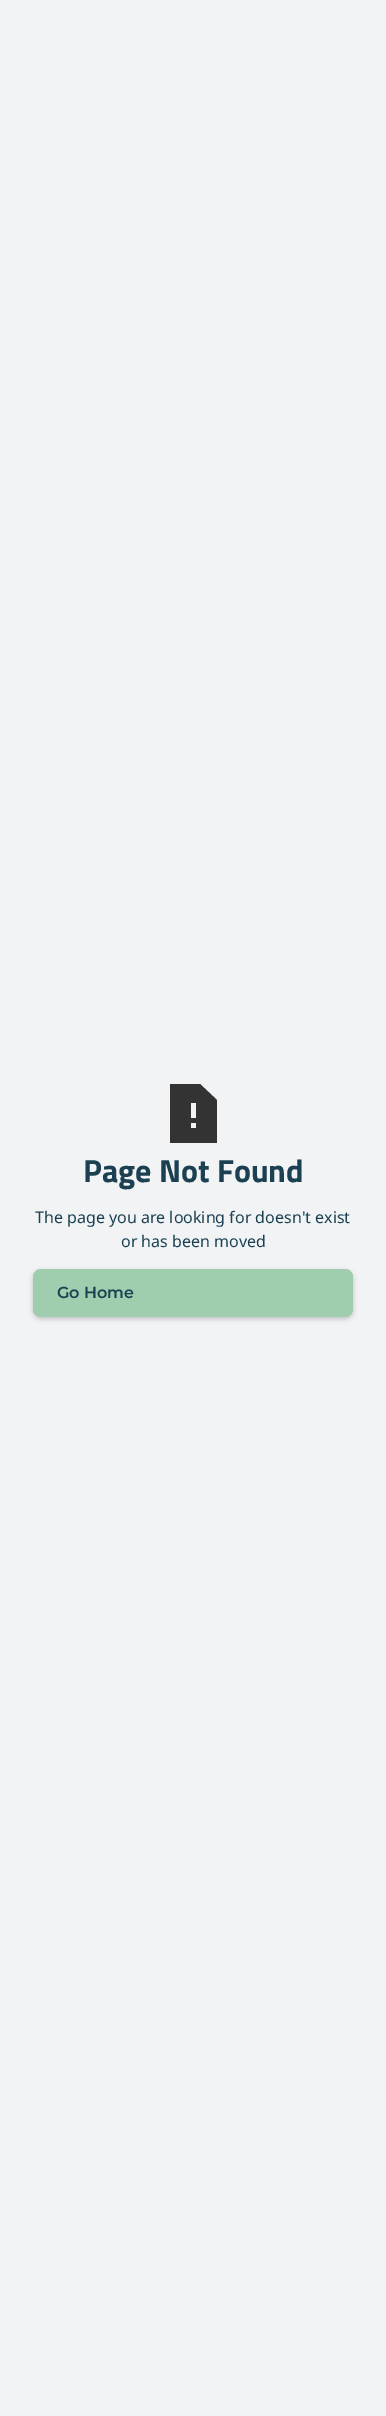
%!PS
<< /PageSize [386 2416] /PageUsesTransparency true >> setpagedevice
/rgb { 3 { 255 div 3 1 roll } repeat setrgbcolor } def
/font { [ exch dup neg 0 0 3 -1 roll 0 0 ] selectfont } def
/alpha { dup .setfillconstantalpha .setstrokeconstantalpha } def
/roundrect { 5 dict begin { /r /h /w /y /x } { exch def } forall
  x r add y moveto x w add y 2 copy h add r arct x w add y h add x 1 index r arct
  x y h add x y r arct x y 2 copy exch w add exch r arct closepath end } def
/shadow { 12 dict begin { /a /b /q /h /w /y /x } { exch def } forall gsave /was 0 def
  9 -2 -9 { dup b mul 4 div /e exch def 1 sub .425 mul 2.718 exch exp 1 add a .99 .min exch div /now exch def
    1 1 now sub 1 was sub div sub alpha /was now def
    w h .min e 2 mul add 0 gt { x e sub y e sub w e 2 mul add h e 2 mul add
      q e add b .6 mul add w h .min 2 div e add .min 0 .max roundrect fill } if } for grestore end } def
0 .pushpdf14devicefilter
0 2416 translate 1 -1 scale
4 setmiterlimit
241 243 245 rgb
0 0 386 2416 rectfill
51 51 51 rgb
170 1084 moveto 200 1084 lineto 217 1100 lineto 217 1143 lineto 170 1143 lineto closepath 191 1103 moveto 196 1103 lineto 196 1118 lineto 191 1118 lineto closepath 191 1123 moveto 196 1123 lineto 196 1128 lineto 191 1128 lineto closepath eofill
0 0 0 rgb
33 1271 320 48 8 2.5 0.2 shadow
159 205 174 rgb
33 1269 320 48 8 roundrect fill
/TitilliumWeb-Bold 32 font
26 64 81 rgb
83 1182 moveto (Page Not Found) show
/NotoSans-Regular 16 font
35 1223 moveto (The page you are looking for doesn't exist) show
121 1247 moveto (or has been moved) show
/Montserrat-SemiBold 16 font
57 1298 moveto (Go Home) show
.poppdf14devicefilter showpage
